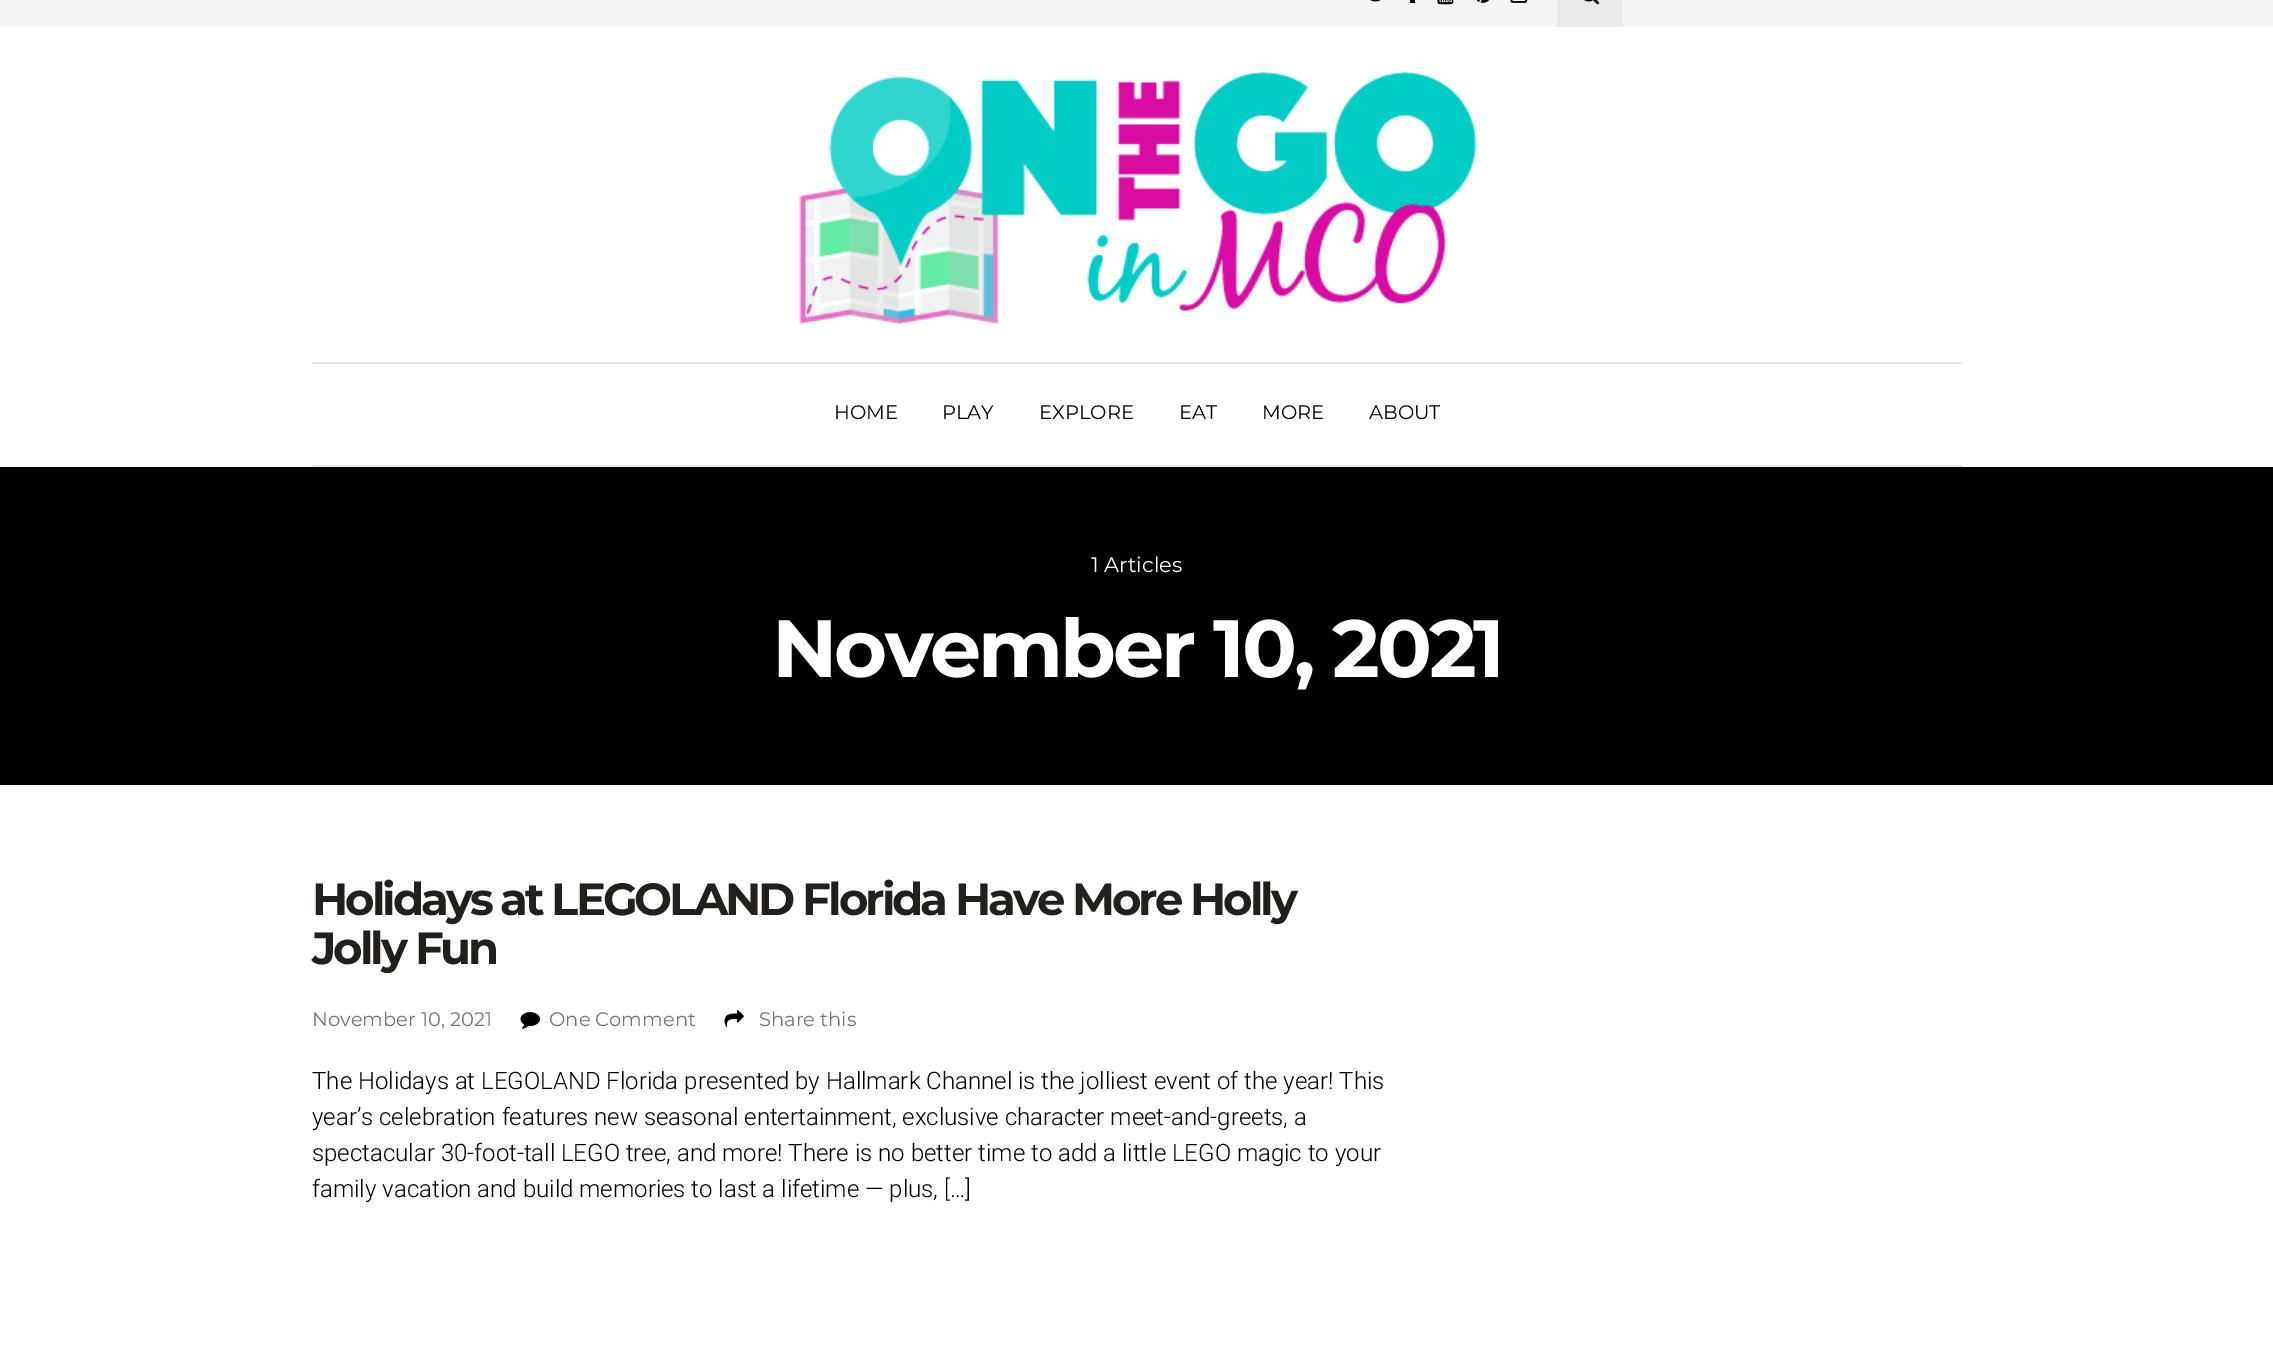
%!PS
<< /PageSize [2273 1366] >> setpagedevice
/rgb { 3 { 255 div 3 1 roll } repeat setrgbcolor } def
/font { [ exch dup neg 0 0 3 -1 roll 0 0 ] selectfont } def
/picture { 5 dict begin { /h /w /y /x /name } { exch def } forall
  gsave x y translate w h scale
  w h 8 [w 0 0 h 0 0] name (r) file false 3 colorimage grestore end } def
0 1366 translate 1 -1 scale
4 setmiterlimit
255 255 255 rgb
0 0 2273 1366 rectfill
245 245 245 rgb
0 0 2273 27 rectfill
(img/1.rgb) 1370 0 11 2 picture
0 0 0 rgb
1410 0 5 3 rectfill
(img/2.rgb) 1437 0 17 5 picture
(img/3.rgb) 1476 0 13 3 picture
(img/4.rgb) 1510 0 18 3 picture
233 233 233 rgb
1557 0 66 27 rectfill
(img/5.rgb) 1584 0 16 5 picture
(img/6.rgb) 799 72 677 252 picture
[
  [312 362 1650 2 232 232 232]
  [312 465 1650 2 232 232 232]
  [0 467 2273 318 0 0 0]
] { aload pop rgb rectfill } forall
(img/7.rgb) 520 1012 20 17 picture
(img/8.rgb) 724 1010 20 18 picture
/Montserrat-Regular 19.5 font
[
  [(HOME) 834 419]
  [(PLAY) 942 419]
  [(EXPLORE) 1039 419]
  [(EAT) 1179 419]
  [(MORE) 1262 419]
  [(ABOUT) 1369 419]
] { aload pop moveto show } forall
/Montserrat-Regular 21 font
255 255 255 rgb
1091 572 moveto (1 Articles) show
/Montserrat-Bold 81 font
772 677 moveto -3 0 (November 10, 2021) ashow
/Montserrat-Bold 45 font
33 32 31 rgb
312 915 moveto -3 0 (Holidays at LEGOLAND Florida Have More Holly) ashow
312 964 moveto -3 0 (Jolly Fun) ashow
/Montserrat-Regular 19.5 font
115 115 115 rgb
[
  [(November 10, 2021) 312 1026]
  [(One Comment) 549 1026]
  [(Share this) 759 1026]
] { aload pop moveto show } forall
/Roboto-Light 24 font
0 0 0 rgb
[
  [(The Holidays at LEGOLAND Florida presented by Hallmark Channel is the jolliest event of the year! This) 312 1089]
  [(year’s celebration features new seasonal entertainment, exclusive character meet-and-greets, a) 312 1125]
  [(spectacular 30-foot-tall LEGO tree, and more! There is no better time to add a little LEGO magic to your) 312 1161]
  [(family vacation and build memories to last a lifetime — plus, […]) 312 1197]
] { aload pop moveto show } forall
showpage
